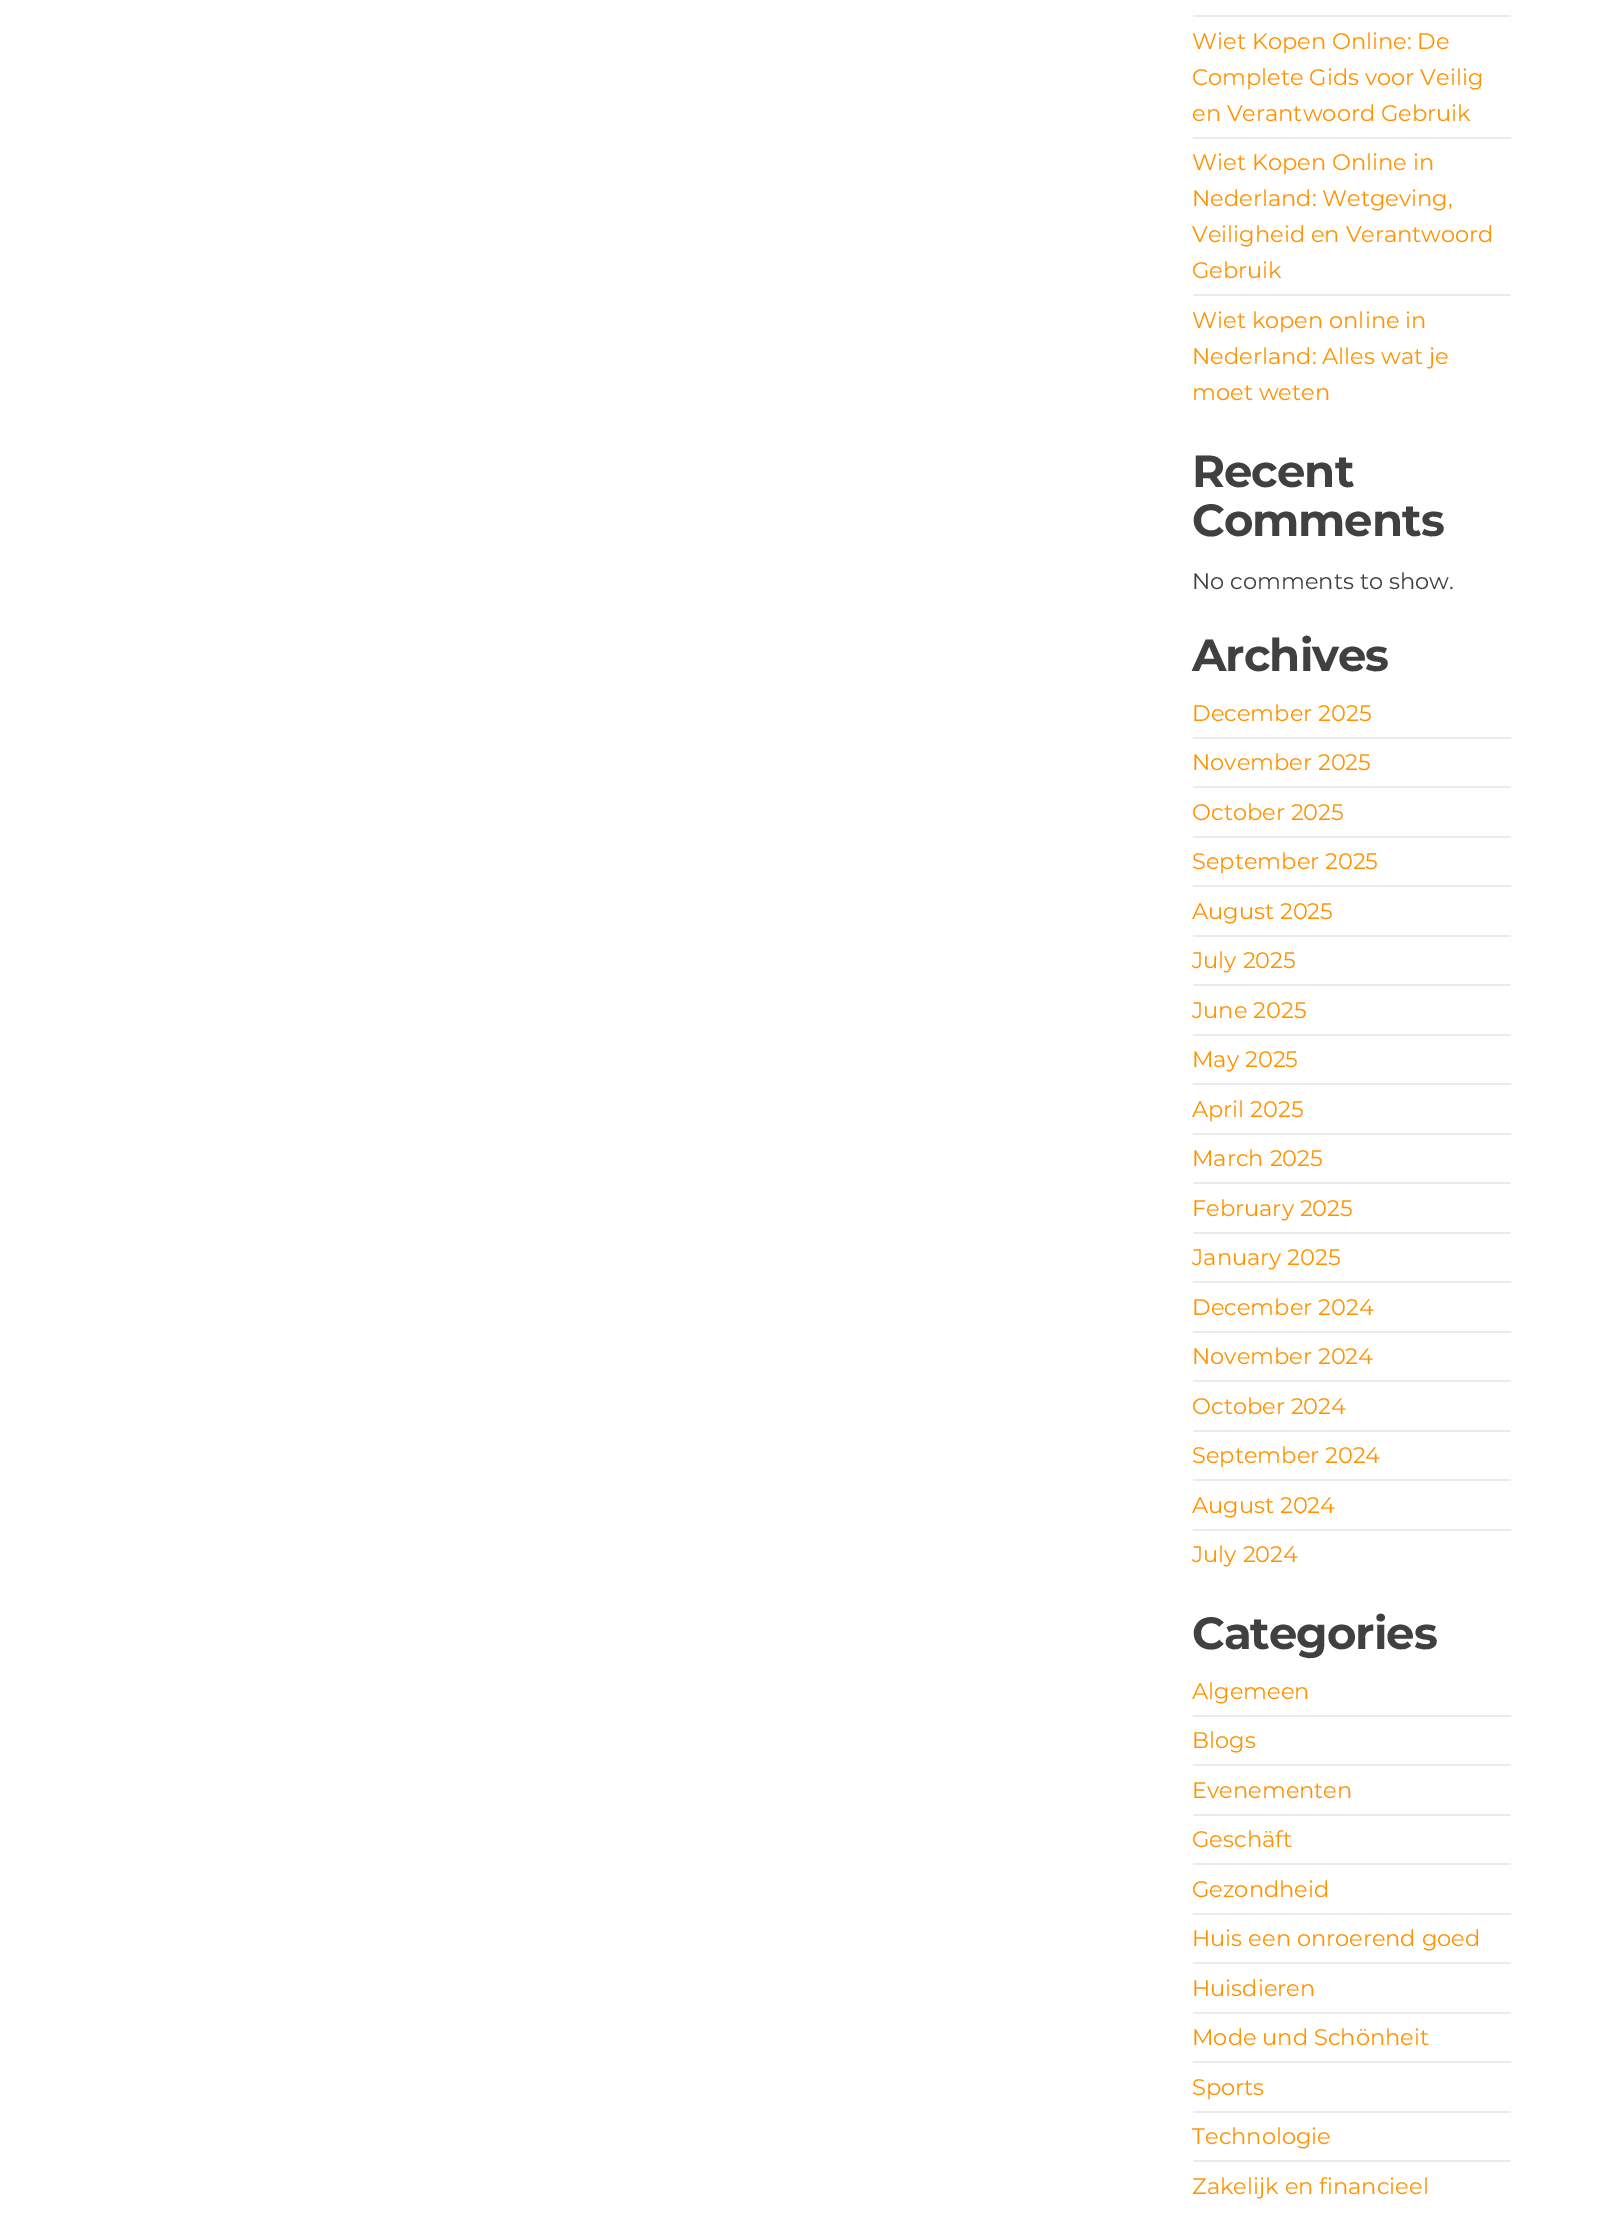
%!PS
<< /PageSize [1611 2213] >> setpagedevice
/rgb { 3 { 255 div 3 1 roll } repeat setrgbcolor } def
/font { [ exch dup neg 0 0 3 -1 roll 0 0 ] selectfont } def
0 2213 translate 1 -1 scale
4 setmiterlimit
255 255 255 rgb
0 0 1611 2213 rectfill
[
  [1193 15 318 2 235 235 235]
  [1193 137 318 2 235 235 235]
  [1193 294 318 2 235 235 235]
  [1193 737 318 2 235 235 235]
  [1193 786 318 2 235 235 235]
  [1193 836 318 2 235 235 235]
  [1193 885 318 2 235 235 235]
  [1193 935 318 2 235 235 235]
  [1193 984 318 2 235 235 235]
  [1193 1034 318 2 235 235 235]
  [1193 1083 318 2 235 235 235]
  [1193 1133 318 2 235 235 235]
  [1193 1182 318 2 235 235 235]
  [1193 1232 318 2 235 235 235]
  [1193 1281 318 2 235 235 235]
  [1193 1331 318 2 235 235 235]
  [1193 1380 318 2 235 235 235]
  [1193 1430 318 2 235 235 235]
  [1193 1479 318 2 235 235 235]
  [1193 1529 318 2 235 235 235]
  [1193 1715 318 2 235 235 235]
  [1193 1764 318 2 235 235 235]
  [1193 1814 318 2 235 235 235]
  [1193 1863 318 2 235 235 235]
  [1193 1913 318 2 235 235 235]
  [1193 1962 318 2 235 235 235]
  [1193 2012 318 2 235 235 235]
  [1193 2061 318 2 235 235 235]
  [1193 2111 318 2 235 235 235]
  [1193 2160 318 2 235 235 235]
] { aload pop rgb rectfill } forall
/Montserrat-Regular 22.5 font
255 146 0 rgb
[
  [(Wiet Kopen Online: De) 1192 49]
  [(Complete Gids voor Veilig) 1192 85]
  [(en Verantwoord Gebruik) 1192 121]
  [(Wiet Kopen Online in) 1192 170]
  [(Nederland: Wetgeving,) 1192 206]
  [(Veiligheid en Verantwoord) 1192 242]
  [(Gebruik) 1192 278]
  [(Wiet kopen online in) 1192 328]
  [(Nederland: Alles wat je) 1192 364]
  [(moet weten) 1192 400]
] { aload pop moveto show } forall
/Montserrat-Bold 45 font
64 64 64 rgb
1192 487 moveto -1 0 (Recent) ashow
1192 536 moveto -1 0 (Comments) ashow
/Montserrat-Regular 22.5 font
1192 589 moveto (No comments to show.) show
/Montserrat-Bold 45 font
1192 671 moveto -1 0 (Archives) ashow
/Montserrat-Regular 22.5 font
255 146 0 rgb
[
  [(December 2025) 1192 721]
  [(November 2025) 1192 770]
  [(October 2025) 1192 820]
  [(September 2025) 1192 869]
  [(August 2025) 1192 919]
  [(July 2025) 1192 968]
  [(June 2025) 1192 1018]
  [(May 2025) 1192 1067]
  [(April 2025) 1192 1117]
  [(March 2025) 1192 1166]
  [(February 2025) 1192 1216]
  [(January 2025) 1192 1265]
  [(December 2024) 1192 1315]
  [(November 2024) 1192 1364]
  [(October 2024) 1192 1414]
  [(September 2024) 1192 1463]
  [(August 2024) 1192 1513]
  [(July 2024) 1192 1562]
] { aload pop moveto show } forall
/Montserrat-Bold 45 font
64 64 64 rgb
1192 1649 moveto -1 0 (Categories) ashow
/Montserrat-Regular 22.5 font
255 146 0 rgb
[
  [(Algemeen) 1192 1699]
  [(Blogs) 1192 1748]
  [(Evenementen) 1192 1798]
  [(Geschäft) 1192 1847]
  [(Gezondheid) 1192 1897]
  [(Huis een onroerend goed) 1192 1946]
  [(Huisdieren) 1192 1996]
  [(Mode und Schönheit) 1192 2045]
  [(Sports) 1192 2095]
  [(Technologie) 1192 2144]
  [(Zakelijk en financieel) 1192 2194]
] { aload pop moveto show } forall
showpage
